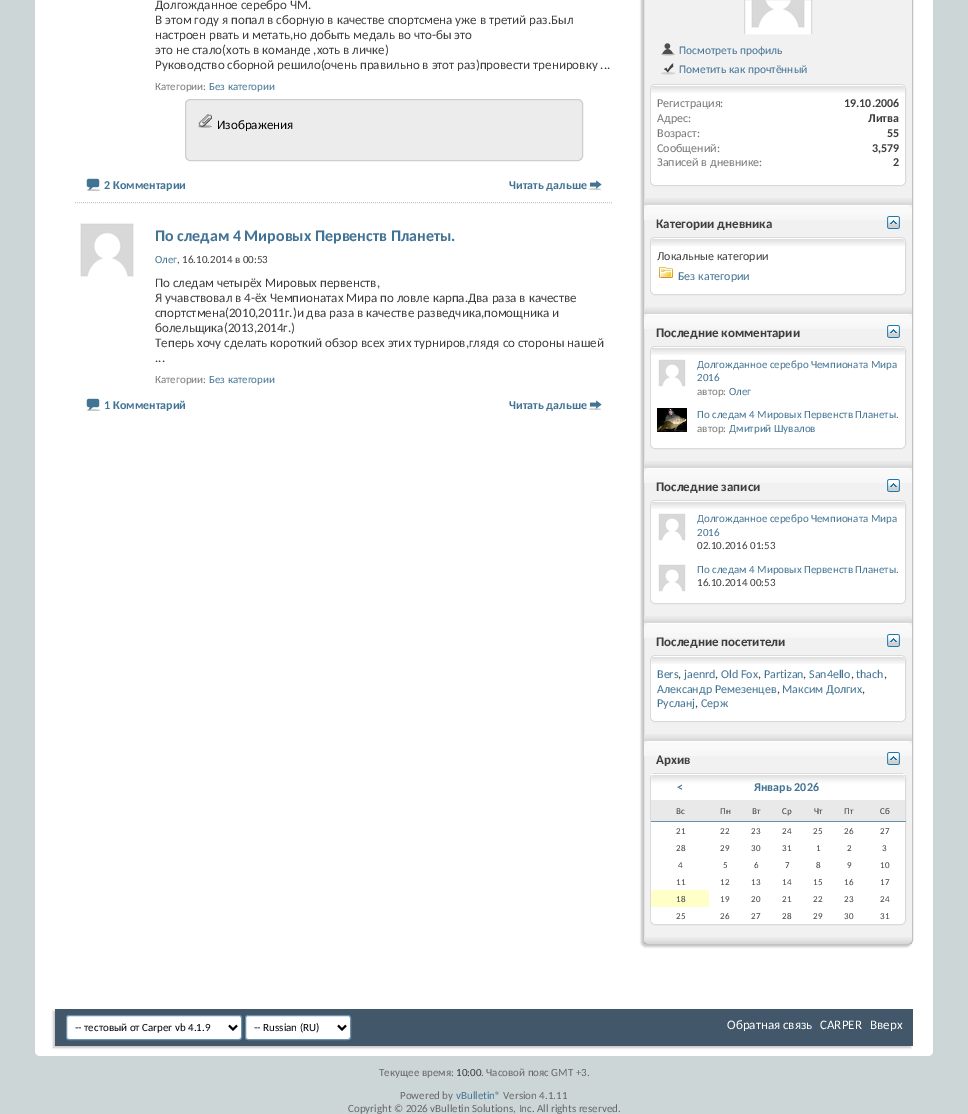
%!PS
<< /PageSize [968 1114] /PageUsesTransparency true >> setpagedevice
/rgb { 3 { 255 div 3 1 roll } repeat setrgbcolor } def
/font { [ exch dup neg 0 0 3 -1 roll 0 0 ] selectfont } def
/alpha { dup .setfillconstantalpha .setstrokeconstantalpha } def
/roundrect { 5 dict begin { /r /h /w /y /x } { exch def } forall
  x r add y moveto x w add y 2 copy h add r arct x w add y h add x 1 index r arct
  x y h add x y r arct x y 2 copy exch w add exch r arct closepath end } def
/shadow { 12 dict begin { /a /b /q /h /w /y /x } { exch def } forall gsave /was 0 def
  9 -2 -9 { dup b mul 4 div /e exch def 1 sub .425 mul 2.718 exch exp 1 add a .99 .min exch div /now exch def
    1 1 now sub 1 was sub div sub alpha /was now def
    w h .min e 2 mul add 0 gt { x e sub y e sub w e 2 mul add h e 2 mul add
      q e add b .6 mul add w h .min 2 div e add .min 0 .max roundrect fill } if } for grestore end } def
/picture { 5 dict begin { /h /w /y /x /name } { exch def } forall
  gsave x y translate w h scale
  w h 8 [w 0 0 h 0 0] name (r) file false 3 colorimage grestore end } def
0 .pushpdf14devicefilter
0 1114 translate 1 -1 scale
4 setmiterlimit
204 214 214 rgb
0 0 968 1114 rectfill
255 255 255 rgb
35 -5 898 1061 5 roundrect fill
236 236 236 rgb
185.5 99.5 397 61 4.5 roundrect gsave fill grestore
206 206 206 rgb
stroke
(img/1.rgb) 198 114 14 14 picture
(img/2.rgb) 86 178 15 13 picture
(img/3.rgb) 588 180 14 10 picture
200 200 200 rgb
[1 1] 0 setdash
75 202.5 moveto 613 202.5 lineto stroke
(img/4.rgb) 80 223 54 54 picture
(img/2.rgb) 86 398 15 13 picture
(img/3.rgb) 588 400 14 10 picture
641 -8 270 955 5 1 1 shadow
241 241 241 rgb
643.5 -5.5 269 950 4.5 roundrect gsave fill grestore
193 193 193 rgb
[] 0 setdash
stroke
255 255 255 rgb
3 setlinewidth
746.5 -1.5 63 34 rectstroke
(img/5.rgb) 748 0 60 31 picture
gsave
650 0 256 34 rectclip
218 218 218 rgb
1 setlinewidth
744.5 -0.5 67 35 rectstroke
grestore
(img/6.rgb) 661 43 14 13 picture
(img/7.rgb) 661 63 14 12 picture
650.5 84.5 255 101 4.5 roundrect gsave fill grestore
218 218 218 rgb
1 setlinewidth
stroke
255 255 255 rgb
651 85 254 100 5 roundrect fill
(img/8.rgb) 651 86 254 7 picture
902 85 1 1 rectfill
(img/9.rgb) 644 198 268 7 picture
(img/10.rgb) 644 205 268 15 picture
(img/11.rgb) 887 216 13 13 picture
650.5 237.5 255 57 4.5 roundrect gsave fill grestore
218 218 218 rgb
stroke
255 255 255 rgb
651 238 254 56 5 roundrect fill
(img/8.rgb) 651 239 254 7 picture
902 238 1 1 rectfill
(img/12.rgb) 659 267 14 11 picture
(img/9.rgb) 644 307 268 7 picture
(img/10.rgb) 644 314 268 15 picture
(img/11.rgb) 887 325 13 13 picture
650.5 346.5 255 102 4.5 roundrect gsave fill grestore
218 218 218 rgb
stroke
255 255 255 rgb
651 347 254 101 5 roundrect fill
(img/8.rgb) 651 348 254 7 picture
902 347 1 1 rectfill
(img/13.rgb) 658 359 28 28 picture
(img/14.rgb) 657 408 30 24 picture
(img/9.rgb) 644 461 268 7 picture
(img/10.rgb) 644 468 268 15 picture
(img/11.rgb) 887 479 13 13 picture
650.5 500.5 255 103 4.5 roundrect gsave fill grestore
218 218 218 rgb
stroke
255 255 255 rgb
651 501 254 102 5 roundrect fill
(img/8.rgb) 651 502 254 7 picture
902 501 1 1 rectfill
(img/13.rgb) 658 513 28 28 picture
(img/13.rgb) 658 564 28 28 picture
(img/9.rgb) 644 616 268 7 picture
(img/10.rgb) 644 623 268 15 picture
(img/11.rgb) 887 634 13 13 picture
650.5 655.5 255 66 4.5 roundrect gsave fill grestore
218 218 218 rgb
stroke
255 255 255 rgb
651 656 254 65 5 roundrect fill
(img/8.rgb) 651 657 254 7 picture
902 656 1 1 rectfill
(img/9.rgb) 644 734 268 7 picture
(img/10.rgb) 644 741 268 15 picture
(img/11.rgb) 887 752 13 13 picture
650.5 773.5 255 151 4.5 roundrect gsave fill grestore
218 218 218 rgb
stroke
255 255 255 rgb
651 774 254 150 5 roundrect fill
(img/15.rgb) 651 775 254 47 picture
[
  [651 774 254 1 255 255 255]
  [651 800 254 21 233 233 233]
  [905 821 1 1 107 145 171]
  [651 890 58 17 255 255 200]
] { aload pop rgb rectfill } forall
(img/16.rgb) 644 937 268 7 picture
200 200 200 rgb
53 1011 858 37 0 1 1 shadow
66 87 105 rgb
55 1009 858 37 rectfill
255 255 255 rgb
66.5 1015.5 175 24 2.5 roundrect gsave fill grestore
107 145 171 rgb
stroke
0 0 0 rgb
2 setlinewidth
229 1025.5 moveto 233 1029.5 lineto 237 1025.5 lineto stroke
255 255 255 rgb
245.5 1015.5 105 24 2.5 roundrect gsave fill grestore
107 145 171 rgb
1 setlinewidth
stroke
0 0 0 rgb
2 setlinewidth
338 1025.5 moveto 342 1029.5 lineto 346 1025.5 lineto stroke
/Carlito-Regular 13 font
62 62 62 rgb
[
  [(Долгожданное серебро ЧМ.) 155 9]
  [(В этом году я попал в сборную в качестве спортсмена уже в третий раз.Был) 155 24]
  [(настроен рвать и метать,но добыть медаль во что-бы это) 155 39]
  [(это не стало\(хоть в команде ,хоть в личке\)) 155 54]
  [(Руководство сборной решило\(очень правильно в этот раз\)провести тренировку ...) 155 69]
] { aload pop moveto show } forall
/Carlito-Regular 11 font
119 119 119 rgb
155 90 moveto (Категории:) show
65 115 148 rgb
209 90 moveto (Без категории) show
/Carlito-Regular 13 font
0 0 0 rgb
217 129 moveto (Изображения) show
/Carlito-Bold 12 font
65 115 148 rgb
104 189 moveto (2 Комментарии) show
509 189 moveto (Читать дальше) show
/Carlito-Bold 16 font
155 241 moveto (По следам 4 Мировых Первенств Планеты.) show
/Carlito-Regular 11 font
62 62 62 rgb
177 263 moveto (, 16.10.2014 в 00:53) show
65 115 148 rgb
155 263 moveto (Олег) show
/Carlito-Regular 13 font
62 62 62 rgb
[
  [(По следам четырёх Мировых первенств,) 155 287]
  [(Я учавствовал в 4-ёх Чемпионатах Мира по ловле карпа.Два раза в качестве) 155 302]
  [(спортстмена\(2010,2011г.\)и два раза в качестве разведчика,помощника и) 155 317]
  [(болельщика\(2013,2014г.\)) 155 332]
  [(Теперь хочу сделать короткий обзор всех этих турниров,глядя со стороны нашей) 155 347]
  [(...) 155 362]
] { aload pop moveto show } forall
/Carlito-Regular 11 font
119 119 119 rgb
155 383 moveto (Категории:) show
65 115 148 rgb
209 383 moveto (Без категории) show
/Carlito-Bold 12 font
104 409 moveto (1 Комментарий) show
509 409 moveto (Читать дальше) show
/Carlito-Regular 11.5 font
679 54 moveto (Посмотреть профиль) show
679 73 moveto (Пометить как прочтённый) show
/Carlito-Regular 12 font
119 119 119 rgb
657 107 moveto (Регистрация:) show
/Carlito-Bold 12 font
62 62 62 rgb
844 107 moveto (19.10.2006) show
/Carlito-Regular 12 font
119 119 119 rgb
657 122 moveto (Адрес:) show
/Carlito-Bold 12 font
62 62 62 rgb
868 122 moveto (Литва) show
/Carlito-Regular 12 font
119 119 119 rgb
657 137 moveto (Возраст:) show
/Carlito-Bold 12 font
62 62 62 rgb
887 137 moveto (55) show
/Carlito-Regular 12 font
119 119 119 rgb
657 152 moveto (Сообщений:) show
/Carlito-Bold 12 font
62 62 62 rgb
872 152 moveto (3,579) show
/Carlito-Regular 12 font
119 119 119 rgb
657 166 moveto (Записей в дневнике:) show
/Carlito-Bold 12 font
62 62 62 rgb
893 166 moveto (2) show
/Carlito-Bold 13 font
656 228 moveto (Категории дневника) show
/Carlito-Regular 12 font
657 260 moveto (Локальные категории) show
65 115 148 rgb
678 280 moveto (Без категории) show
/Carlito-Bold 13 font
62 62 62 rgb
656 337 moveto (Последние комментарии) show
/Carlito-Regular 11 font
65 115 148 rgb
697 368 moveto (Долгожданное серебро Чемпионата Мира) show
697 381 moveto (2016) show
119 119 119 rgb
697 395 moveto (автор:) show
65 115 148 rgb
729 395 moveto (Олег) show
697 418 moveto (По следам 4 Мировых Первенств Планеты.) show
119 119 119 rgb
697 432 moveto (автор:) show
65 115 148 rgb
729 432 moveto (Дмитрий Шувалов) show
/Carlito-Bold 13 font
62 62 62 rgb
656 491 moveto (Последние записи) show
/Carlito-Regular 11 font
65 115 148 rgb
697 522 moveto (Долгожданное серебро Чемпионата Мира) show
697 536 moveto (2016) show
62 62 62 rgb
697 549 moveto (02.10.2016) show
750 549 moveto (01:53) show
65 115 148 rgb
697 573 moveto (По следам 4 Мировых Первенств Планеты.) show
62 62 62 rgb
697 586 moveto (16.10.2014) show
750 586 moveto (00:53) show
/Carlito-Bold 13 font
656 646 moveto (Последние посетители) show
/Carlito-Regular 12 font
65 115 148 rgb
657 678 moveto (Bers) show
62 62 62 rgb
678 678 moveto (,) show
65 115 148 rgb
684 678 moveto (jaenrd) show
62 62 62 rgb
715 678 moveto (,) show
65 115 148 rgb
721 678 moveto (Old Fox) show
62 62 62 rgb
758 678 moveto (,) show
65 115 148 rgb
764 678 moveto (Partizan) show
62 62 62 rgb
803 678 moveto (,) show
65 115 148 rgb
809 678 moveto (San4ello) show
62 62 62 rgb
851 678 moveto (,) show
65 115 148 rgb
856 678 moveto (thach) show
62 62 62 rgb
884 678 moveto (,) show
65 115 148 rgb
657 693 moveto (Александр Ремезенцев) show
62 62 62 rgb
777 693 moveto (,) show
65 115 148 rgb
782 693 moveto (Максим Долгих) show
62 62 62 rgb
862 693 moveto (,) show
65 115 148 rgb
657 707 moveto (Русланj) show
62 62 62 rgb
695 707 moveto (,) show
65 115 148 rgb
701 707 moveto (Серж) show
/Carlito-Bold 13 font
62 62 62 rgb
656 764 moveto (Архив) show
/Carlito-Bold 12 font
65 115 148 rgb
677 791 moveto (<) show
754 791 moveto (Январь 2026) show
/Carlito-Regular 9 font
62 62 62 rgb
[
  [(Вс) 676 814]
  [(Пн) 720 814]
  [(Вт) 752 814]
  [(Ср) 782 814]
  [(Чт) 814 814]
  [(Пт) 844 814]
  [(Сб) 880 814]
  [(21) 676 834]
  [(22) 720 834]
  [(23) 751 834]
  [(24) 782 834]
  [(25) 813 834]
  [(26) 844 834]
  [(27) 880 834]
  [(28) 676 851]
  [(29) 720 851]
  [(30) 751 851]
  [(31) 782 851]
  [(1) 816 851]
  [(2) 847 851]
  [(3) 882 851]
  [(4) 678 868]
  [(5) 723 868]
  [(6) 754 868]
  [(7) 785 868]
  [(8) 816 868]
  [(9) 847 868]
  [(10) 880 868]
  [(11) 676 885]
  [(12) 720 885]
  [(13) 751 885]
  [(14) 782 885]
  [(15) 813 885]
  [(16) 844 885]
  [(17) 880 885]
  [(18) 676 902]
  [(19) 720 902]
  [(20) 751 902]
  [(21) 782 902]
  [(22) 813 902]
  [(23) 844 902]
  [(24) 880 902]
  [(25) 676 919]
  [(26) 720 919]
  [(27) 751 919]
  [(28) 782 919]
  [(29) 813 919]
  [(30) 844 919]
  [(31) 880 919]
] { aload pop moveto show } forall
/Carlito-Regular 11 font
0 0 0 rgb
75 1031 moveto (-- тестовый от Carper vb 4.1.9) show
254 1031 moveto (-- Russian \(RU\)) show
/Carlito-Regular 13 font
255 255 255 rgb
[
  [(Обратная связь) 727 1029]
  [(CARPER) 820 1029]
  [(Вверх) 870 1029]
] { aload pop moveto show } forall
/Carlito-Regular 11 font
102 102 102 rgb
379 1076 moveto (Текущее время:) show
62 62 62 rgb
456 1076 moveto (10:00) show
102 102 102 rgb
481 1076 moveto (. Часовой пояс GMT +3.) show
400 1099 moveto (Powered by) show
65 115 148 rgb
456 1099 moveto (vBulletin®) show
102 102 102 rgb
503 1099 moveto (Version 4.1.11) show
348 1112 moveto (Copyright © 2026 vBulletin Solutions, Inc. All rights reserved.) show
.poppdf14devicefilter showpage
